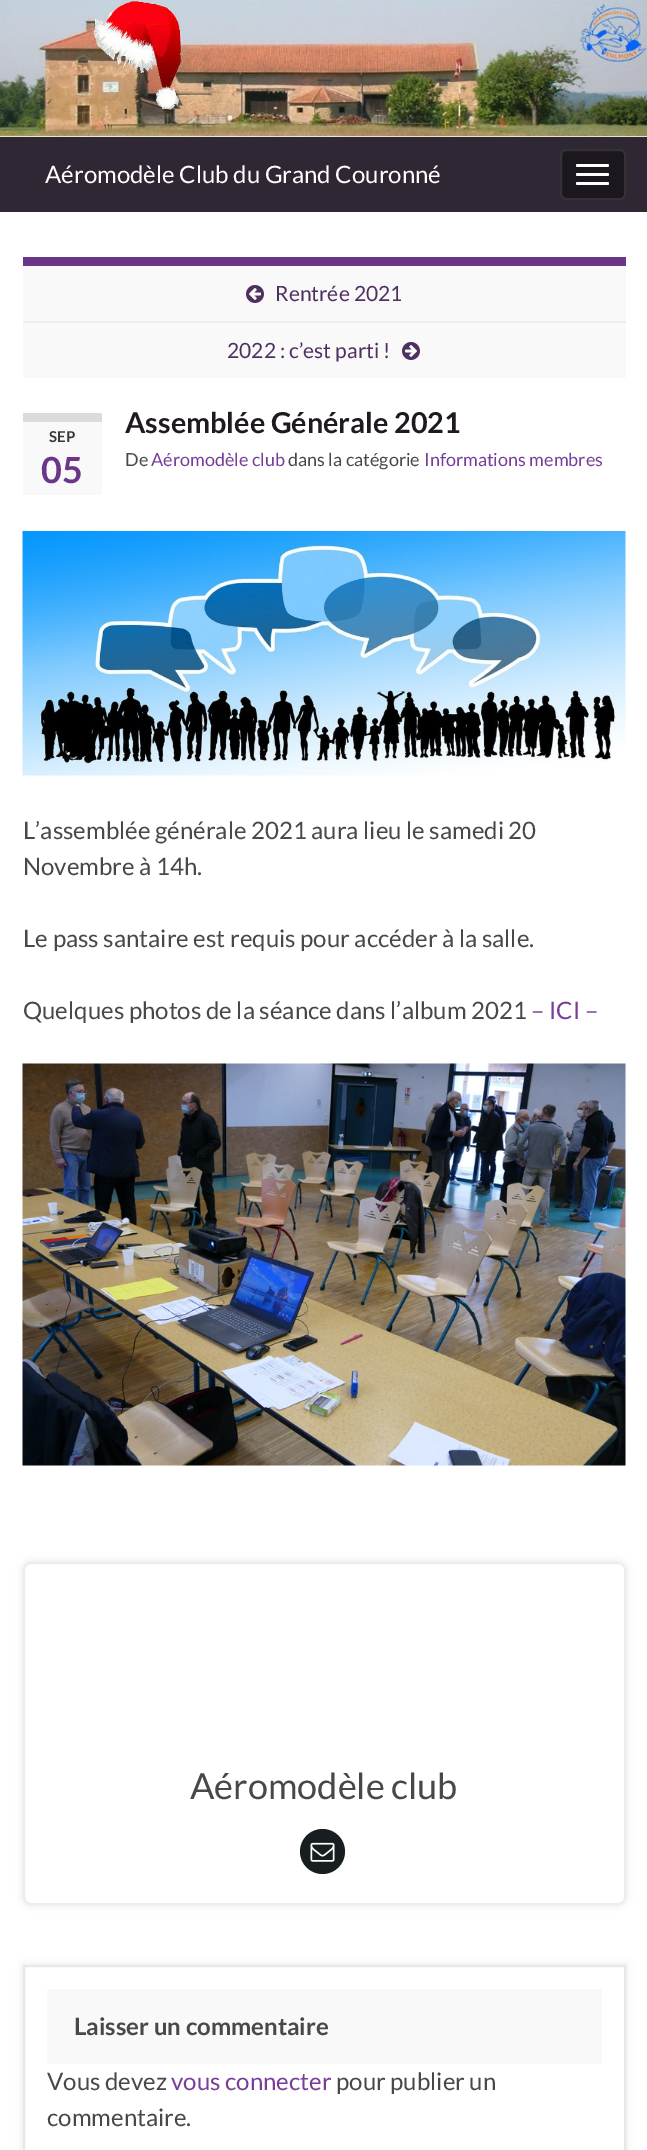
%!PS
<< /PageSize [647 2150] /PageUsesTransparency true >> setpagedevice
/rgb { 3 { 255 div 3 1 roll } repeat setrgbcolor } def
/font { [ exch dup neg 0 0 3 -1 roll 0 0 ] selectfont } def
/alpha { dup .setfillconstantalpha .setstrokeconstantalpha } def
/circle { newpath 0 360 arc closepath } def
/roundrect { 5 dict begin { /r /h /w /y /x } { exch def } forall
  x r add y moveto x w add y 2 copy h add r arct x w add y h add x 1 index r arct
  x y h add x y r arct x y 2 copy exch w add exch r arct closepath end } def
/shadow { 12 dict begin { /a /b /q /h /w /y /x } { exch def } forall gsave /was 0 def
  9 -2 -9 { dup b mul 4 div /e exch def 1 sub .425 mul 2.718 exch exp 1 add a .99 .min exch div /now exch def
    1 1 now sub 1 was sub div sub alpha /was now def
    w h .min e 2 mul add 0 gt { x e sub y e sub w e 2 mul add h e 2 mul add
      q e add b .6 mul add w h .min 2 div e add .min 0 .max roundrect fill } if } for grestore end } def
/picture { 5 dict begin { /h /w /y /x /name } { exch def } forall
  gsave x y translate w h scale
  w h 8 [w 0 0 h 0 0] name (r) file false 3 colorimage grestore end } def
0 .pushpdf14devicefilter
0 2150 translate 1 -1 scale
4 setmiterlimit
255 255 255 rgb
0 0 647 2150 rectfill
(img/1.rgb) 0 0 647 137 picture
47 39 51 rgb
0 137 647 75 rectfill
28 23 31 rgb
561 150 64 49 5 roundrect gsave fill grestore
51 51 51 rgb
2 setlinewidth
stroke
255 255 255 rgb
576 164 33 3 1.5 roundrect fill
576 173 33 3 1.5 roundrect fill
576 182 33 3 1.5 roundrect fill
249 249 249 rgb
23 266 603 112 rectfill
107 53 137 rgb
23 257 603 9 rectfill
(img/2.rgb) 246 285 18 18 picture
238 238 238 rgb
23 321 603 2 rectfill
(img/3.rgb) 402 342 18 18 picture
249 249 249 rgb
23 422 79 73 rectfill
219 219 219 rgb
23 413 79 9 rectfill
(img/4.rgb) 22 531 604 245 picture
(img/5.rgb) 22 1063 604 403 picture
0 0 0 rgb
23 1562 603 343 8 4 0.1 shadow
255 255 255 rgb
24 1563 601 341 7 roundrect gsave fill grestore
235 237 240 rgb
stroke
24 30 31 rgb
322.5 1851.5 22.5 circle fill
(img/6.rgb) 310 1842 25 20 picture
0 0 0 rgb
23 1965 603 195 0 4 0.1 shadow
255 255 255 rgb
24 1966 moveto 625 1966 lineto 625 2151 lineto 24 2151 lineto closepath gsave fill grestore
233 232 227 rgb
stroke
249 249 249 rgb
47 1989 555 75 rectfill
/Lato-Regular 24 font
255 255 255 rgb
45 183 moveto (Aéromodèle Club du Grand Couronné) show
/Lato-Regular 21 font
78 48 94 rgb
275 301 moveto (Rentrée 2021) show
227 358 moveto (2022 : c’est parti !) show
/Lato-Bold 28.75 font
31 26 34 rgb
125 433 moveto (Assemblée Générale 2021) show
/Lato-Bold 15 font
59 56 61 rgb
49 442 moveto (SEP) show
/Lato-Bold 36 font
107 53 137 rgb
41 483 moveto (05) show
/Lato-Regular 18 font
74 71 75 rgb
125 466 moveto (De) show
120 61 152 rgb
151 466 moveto (Aéromodèle club) show
74 71 75 rgb
288 466 moveto (dans la catégorie) show
120 61 152 rgb
424 466 moveto (Informations membres) show
/Lato-Regular 24 font
74 71 75 rgb
[
  [(L’assemblée générale 2021 aura lieu le samedi 20) 23 839]
  [(Novembre à 14h.) 23 875]
  [(Le pass santaire est requis pour accéder à la salle.) 23 947]
  [(Quelques photos de la séance dans l’album 2021) 23 1019]
] { aload pop moveto show } forall
120 61 152 rgb
531 1019 moveto (– ICI –) show
/Lato-Regular 36 font
74 71 75 rgb
190 1799 moveto (Aéromodèle club) show
/Lato-Bold 24 font
74 2035 moveto (Laisser un commentaire) show
/Lato-Regular 24 font
47 2090 moveto (Vous devez) show
120 61 152 rgb
171 2090 moveto (vous connecter) show
74 71 75 rgb
336 2090 moveto (pour publier un) show
47 2126 moveto (commentaire.) show
.poppdf14devicefilter showpage
